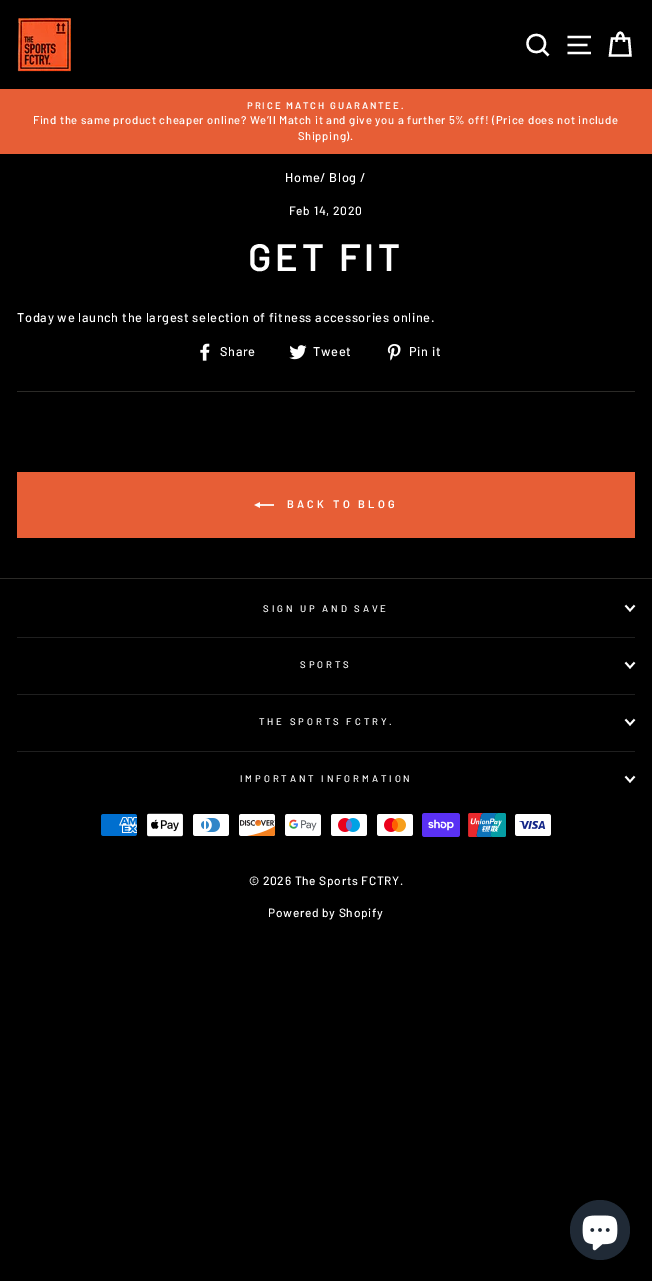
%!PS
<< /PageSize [652 1281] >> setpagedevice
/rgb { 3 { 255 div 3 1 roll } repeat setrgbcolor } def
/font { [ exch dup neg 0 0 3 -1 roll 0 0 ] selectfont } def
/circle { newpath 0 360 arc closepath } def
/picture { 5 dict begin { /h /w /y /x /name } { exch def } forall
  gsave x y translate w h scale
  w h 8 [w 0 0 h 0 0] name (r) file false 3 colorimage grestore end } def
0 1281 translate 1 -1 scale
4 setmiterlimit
0 0 0 rgb
0 0 652 1281 rectfill
(img/1.rgb) 17 17 54 55 picture
255 255 255 rgb
2.3 setlinewidth
545 43.5 moveto 545 55 527.5 55 527.5 43.5 curveto 527.5 32 545 32 545 43.5 curveto closepath 548.5 55.5 moveto 542.5 49.5 lineto stroke
567.5 37 moveto 591 37 lineto 567.5 45 moveto 587.5 45 lineto 567.5 53 moveto 591 53 lineto 616.5 42 moveto 616.5 29.5 624 29.5 624 42 curveto stroke
612 38.5 moveto 629 38.5 lineto 630.5 55.5 lineto 610 55.5 lineto closepath stroke
231 94 54 rgb
0 89 652 65 rectfill
(img/2.rgb) 200 343 10 18 picture
(img/3.rgb) 289 345 18 15 picture
(img/4.rgb) 387 344 14 17 picture
43 42 39 rgb
17 391 618 1 rectfill
231 94 54 rgb
17 472 618 66 rectfill
(img/5.rgb) 254 502 20 6 picture
43 42 39 rgb
0 578 652 1 rectfill
255 255 255 rgb
1.8 setlinewidth
625.5 605.5 moveto 630 610.5 lineto 634.5 605.5 lineto stroke
31 31 31 rgb
17 637 618 1 rectfill
255 255 255 rgb
625.5 662.5 moveto 630 667.5 lineto 634.5 662.5 lineto stroke
31 31 31 rgb
17 694 618 1 rectfill
255 255 255 rgb
625.5 719.5 moveto 630 724.5 lineto 634.5 719.5 lineto stroke
31 31 31 rgb
17 751 618 1 rectfill
255 255 255 rgb
625.5 776.5 moveto 630 781.5 lineto 634.5 776.5 lineto stroke
(img/6.rgb) 101 814 36 22 picture
(img/7.rgb) 147 813 36 24 picture
(img/8.rgb) 193 814 36 22 picture
(img/9.rgb) 239 814 37 22 picture
(img/10.rgb) 285 814 36 22 picture
(img/11.rgb) 331 814 36 22 picture
(img/12.rgb) 377 814 36 22 picture
(img/13.rgb) 422 813 38 24 picture
(img/14.rgb) 468 813 38 24 picture
(img/15.rgb) 515 814 36 22 picture
32 42 54 rgb
600 1230 30 circle fill
(img/16.rgb) 582 1215 36 36 picture
/Barlow-SemiBold 9.6 font
255 255 255 rgb
247 109 moveto 1.9 0 (PRICE MATCH GUARANTEE.) ashow
/Barlow-Medium 11.25 font
33 124 moveto 0.64 0 (Find the same product cheaper online? We’ll Match it and give you a further 5% off! \(Price does not include) ashow
298 140 moveto 0.64 0 (Shipping\).) ashow
/Barlow-Medium 12.75 font
285 182 moveto 0.64 0 (Home/ Blog /) ashow
/Barlow-Medium 12 font
289 215 moveto 0.64 0 (Feb 14, 2020) ashow
/Barlow-SemiBold 38.25 font
248 271 moveto 3.75 0 (GET FIT) ashow
/Barlow-Medium 12.75 font
17 322 moveto 0.64 0 (Today we launch the largest selection of fitness accessories online.) ashow
220 356 moveto 0.64 0 (Share) ashow
313 356 moveto 0.64 0 (Tweet) ashow
409 356 moveto 0.64 0 (Pin it) ashow
/Barlow-SemiBold 11 font
287 508 moveto 3.25 0 (BACK TO BLOG) ashow
/Barlow-Medium 9.6 font
263 612 moveto 2.9 0 (SIGN UP AND SAVE) ashow
300 668 moveto 2.9 0 (SPORTS) ashow
259 725 moveto 2.9 0 (THE SPORTS FCTRY.) ashow
240 782 moveto 2.9 0 (IMPORTANT INFORMATION) ashow
/Barlow-Medium 12 font
249 885 moveto 0.64 0 (© 2026 The Sports FCTRY.) ashow
268 917 moveto 0.64 0 (Powered by Shopify) ashow
showpage
